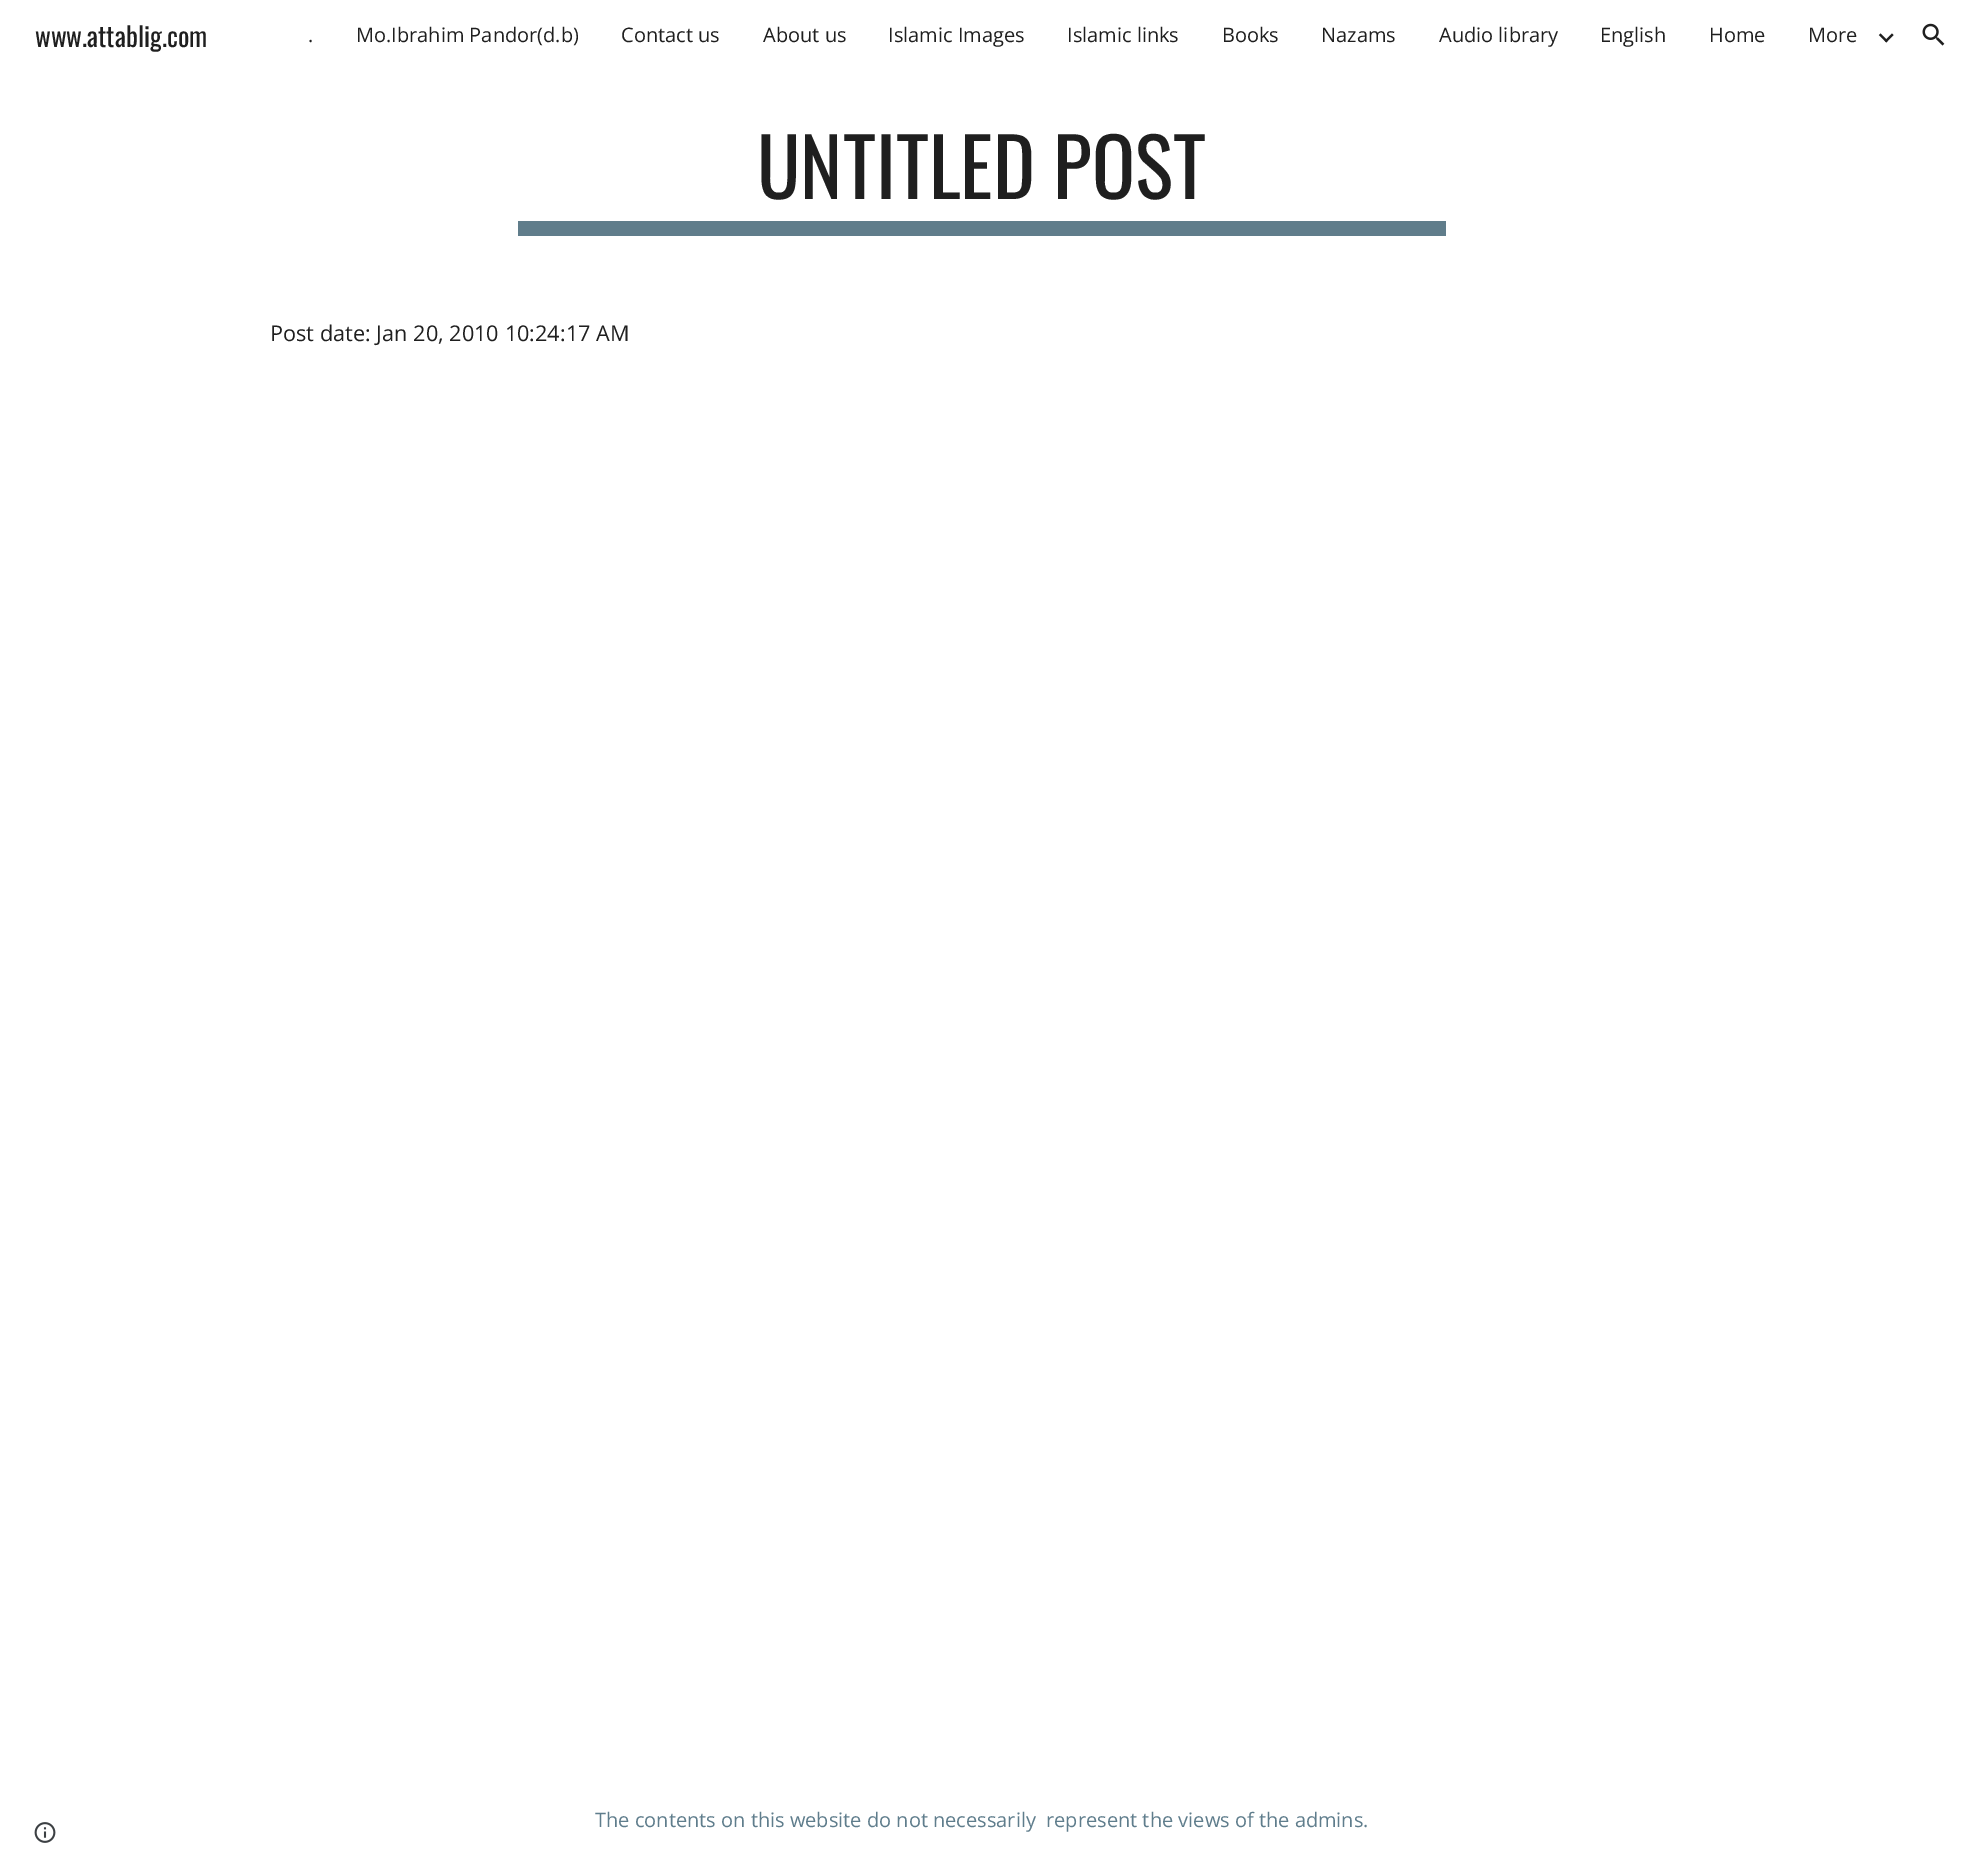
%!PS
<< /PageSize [1963 1874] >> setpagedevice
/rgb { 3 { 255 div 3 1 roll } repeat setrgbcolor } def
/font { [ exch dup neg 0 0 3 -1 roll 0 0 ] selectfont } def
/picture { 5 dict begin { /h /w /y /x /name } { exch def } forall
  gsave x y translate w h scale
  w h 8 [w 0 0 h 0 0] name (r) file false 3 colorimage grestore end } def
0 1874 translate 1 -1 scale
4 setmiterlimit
255 255 255 rgb
0 0 1963 1874 rectfill
(img/1.rgb) 1878 33 16 10 picture
(img/2.rgb) 1922 23 23 23 picture
96 125 139 rgb
518 221 928 15 rectfill
(img/3.rgb) 34 1822 22 21 picture
/Oswald-Regular 26.75 font
31 31 31 rgb
35 47 moveto (www.attablig.com) show
/OpenSans-Regular 20 font
[
  [(.) 308 42]
  [(Mo.Ibrahim Pandor\(d.b\)) 356 42]
  [(Contact us) 621 42]
  [(About us) 763 42]
  [(Islamic Images) 888 42]
  [(Islamic links) 1067 42]
  [(Books) 1222 42]
  [(Nazams) 1321 42]
  [(Audio library) 1439 42]
  [(English) 1600 42]
  [(Home) 1709 42]
  [(More) 1808 42]
] { aload pop moveto show } forall
/Oswald-Regular 80 font
757 199 moveto (UNTITLED POST) show
/OpenSans-Regular 21.7 font
270 341 moveto (Post date: Jan 20, 2010 10:24:17 AM) show
/OpenSans-Regular 20 font
95 125 140 rgb
595 1827 moveto (The contents on this website do not necessarily  represent the views of the admins.) show
showpage
